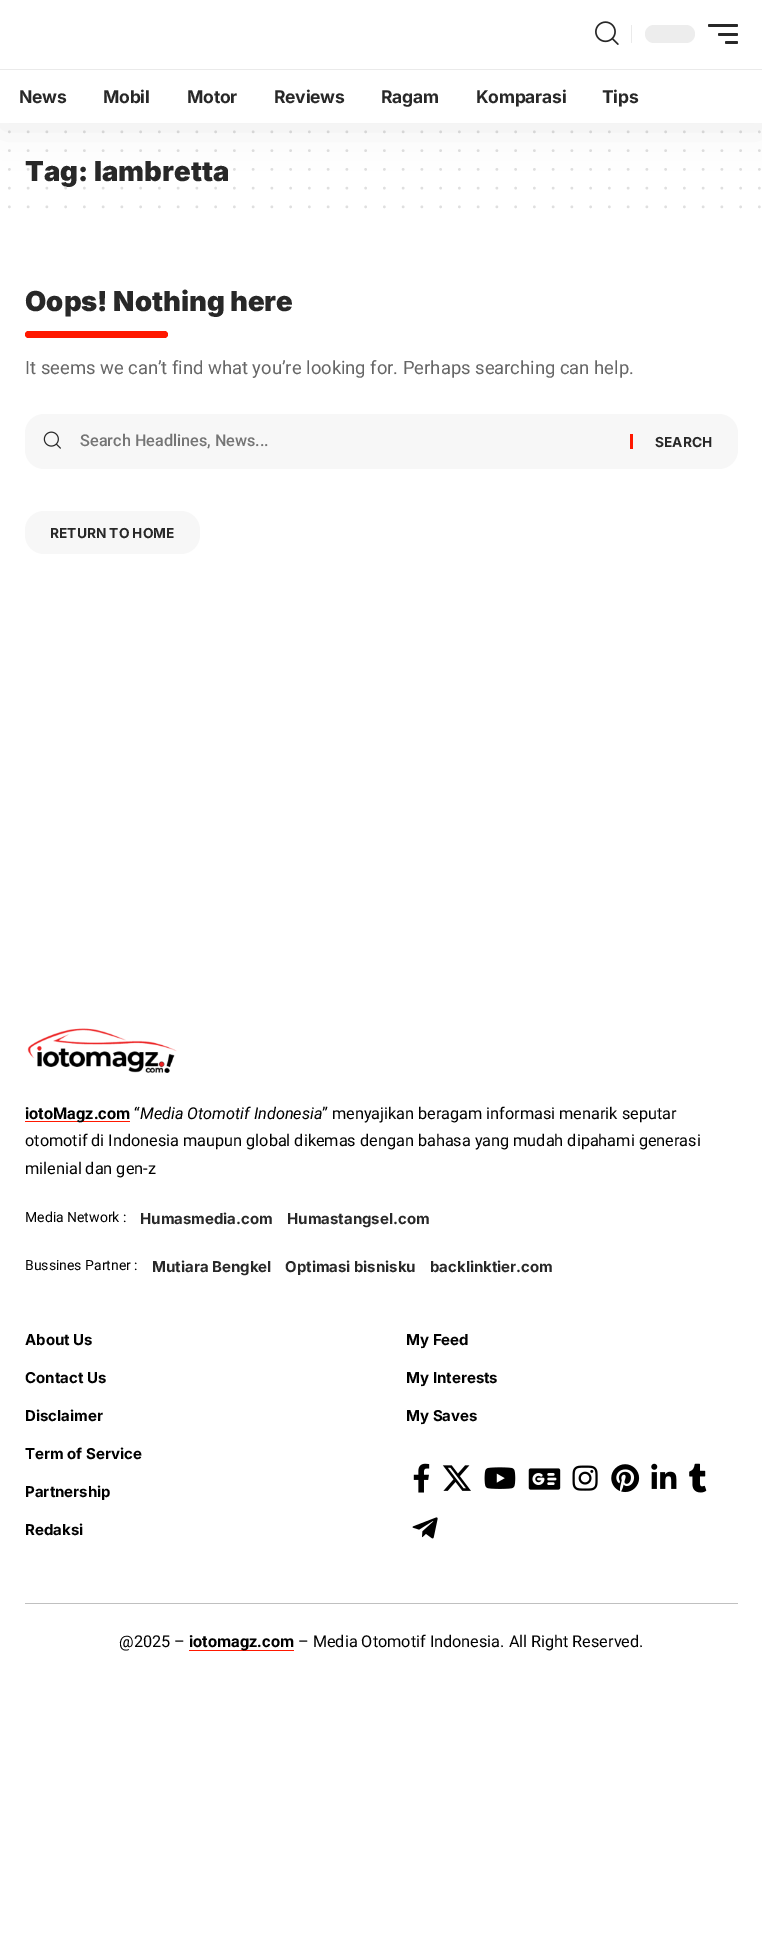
%!PS
<< /PageSize [762 1956] /PageUsesTransparency true >> setpagedevice
/rgb { 3 { 255 div 3 1 roll } repeat setrgbcolor } def
/font { [ exch dup neg 0 0 3 -1 roll 0 0 ] selectfont } def
/alpha { dup .setfillconstantalpha .setstrokeconstantalpha } def
/roundrect { 5 dict begin { /r /h /w /y /x } { exch def } forall
  x r add y moveto x w add y 2 copy h add r arct x w add y h add x 1 index r arct
  x y h add x y r arct x y 2 copy exch w add exch r arct closepath end } def
/shadow { 12 dict begin { /a /b /q /h /w /y /x } { exch def } forall gsave /was 0 def
  9 -2 -9 { dup b mul 4 div /e exch def 1 sub .425 mul 2.718 exch exp 1 add a .99 .min exch div /now exch def
    1 1 now sub 1 was sub div sub alpha /was now def
    w h .min e 2 mul add 0 gt { x e sub y e sub w e 2 mul add h e 2 mul add
      q e add b .6 mul add w h .min 2 div e add .min 0 .max roundrect fill } if } for grestore end } def
/picture { 5 dict begin { /h /w /y /x /name } { exch def } forall
  gsave x y translate w h scale
  w h 8 [w 0 0 h 0 0] name (r) file false 3 colorimage grestore end } def
0 .pushpdf14devicefilter
0 1956 translate 1 -1 scale
4 setmiterlimit
255 255 255 rgb
0 0 762 1956 rectfill
223 223 223 rgb
2.5 setlinewidth
1 setlinecap
[0 18.75] 0 setdash
9.4 131.9 moveto 759.6 131.9 lineto stroke
9.4 150.6 moveto 759.6 150.6 lineto stroke
9.4 206.9 moveto 759.6 206.9 lineto stroke
255 24 0 rgb
25 331 143 7 3.5 roundrect fill
247 247 247 rgb
25 414 713 55 19 roundrect fill
(img/2.rgb) 43 431 18 18 picture
255 24 0 rgb
630 434 3 15 rectfill
247 247 247 rgb
25 511 175 43 19 roundrect fill
(img/3.rgb) 27 1028 150 45 picture
255 24 0 rgb
25 1121 105 1 rectfill
(img/4.rgb) 413 1463 17 30 picture
(img/5.rgb) 442 1465 29 26 picture
(img/6.rgb) 484 1467 32 22 picture
(img/7.rgb) 528 1468 33 22 picture
(img/8.rgb) 572 1465 26 26 picture
(img/9.rgb) 611 1464 29 29 picture
(img/10.rgb) 651 1463 26 26 picture
(img/11.rgb) 689 1463 18 30 picture
(img/12.rgb) 412 1517 26 22 picture
192 192 192 rgb
25 1603 713 1 rectfill
255 24 0 rgb
189 1650 105 1 rectfill
/Inter-Black 27.5 font
40 40 40 rgb
25 181 moveto (Tag: lambretta) show
0.15 alpha
9.4 169.4 moveto 759.6 169.4 lineto stroke
1 alpha
0 0 0 rgb
0 5 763 123 0 19 0.07 shadow
255 255 255 rgb
0 0 762 123 rectfill
/Inter-Bold 17.5 font
40 40 40 rgb
602 103 moveto -0.25 0 (Tips) ashow
476 103 moveto -0.25 0 (Komparasi) ashow
381 103 moveto -0.25 0 (Ragam) ashow
274 103 moveto -0.25 0 (Reviews) ashow
187 103 moveto -0.25 0 (Motor) ashow
103 103 moveto -0.25 0 (Mobil) ashow
19 103 moveto -0.25 0 (News) ashow
234 234 234 rgb
0 69 762 1 rectfill
40 40 40 rgb
725 41 13 3 1.5 roundrect fill
718 33 20 3 1.5 roundrect fill
708 24 30 3 1.5 roundrect fill
237 237 237 rgb
645 25 50 18 9 roundrect fill
234 234 234 rgb
631 25 1 18 rectfill
(img/1.rgb) 595 21 24 24 picture
223 223 223 rgb
9.4 188.1 moveto 759.6 188.1 lineto stroke
/Inter-Black 27.5 font
40 40 40 rgb
25 311 moveto (Oops! Nothing here) show
/Roboto-Regular 18.4 font
102 102 102 rgb
25 374 moveto (It seems we can’t find what you’re looking for. Perhaps searching can help.) show
/Roboto-Medium 16.25 font
117 117 117 rgb
80 446 moveto (Search Headlines, News...) show
/Inter-Bold 13.75 font
40 40 40 rgb
655 447 moveto (SEARCH) show
50 538 moveto (RETURN TO HOME) show
/Roboto-Bold 16.25 font
0 0 0 rgb
25 1119 moveto (iotoMagz.com) show
/Roboto-Regular 16.25 font
134 1119 moveto (“) show
/Roboto-Italic 16.25 font
140 1119 moveto (Media Otomotif Indonesia) show
/Roboto-Regular 16.25 font
[
  [(” menyajikan beragam informasi menarik seputar) 322 1119]
  [(otomotif di Indonesia maupun global dikemas dengan bahasa yang mudah dipahami generasi) 25 1146]
  [(milenial dan gen-z) 25 1174]
] { aload pop moveto show } forall
/Roboto-Regular 14 font
25 1222 moveto (Media Network :) show
/Inter-Bold 15 font
40 40 40 rgb
140 1224 moveto (Humasmedia.com) show
287 1224 moveto (Humastangsel.com) show
/Roboto-Regular 14 font
0 0 0 rgb
25 1270 moveto (Bussines Partner :) show
/Inter-Bold 15 font
40 40 40 rgb
[
  [(Mutiara Bengkel) 152 1272]
  [(Optimasi bisnisku) 285 1272]
  [(backlinktier.com) 430 1272]
] { aload pop moveto show } forall
0 0 0 rgb
[
  [(About Us) 25 1345]
  [(Contact Us) 25 1383]
  [(Disclaimer) 25 1421]
  [(Term of Service) 25 1459]
  [(Partnership) 25 1497]
  [(Redaksi) 25 1535]
  [(My Feed) 406 1345]
  [(My Interests) 406 1383]
  [(My Saves) 406 1421]
] { aload pop moveto show } forall
/Roboto-Regular 16.25 font
119 1647 moveto (@2025 –) show
/Roboto-Bold 16.25 font
189 1647 moveto (iotomagz.com) show
/Roboto-Regular 16.25 font
298 1647 moveto (– Media Otomotif Indonesia. All Right Reserved.) show
.poppdf14devicefilter showpage
